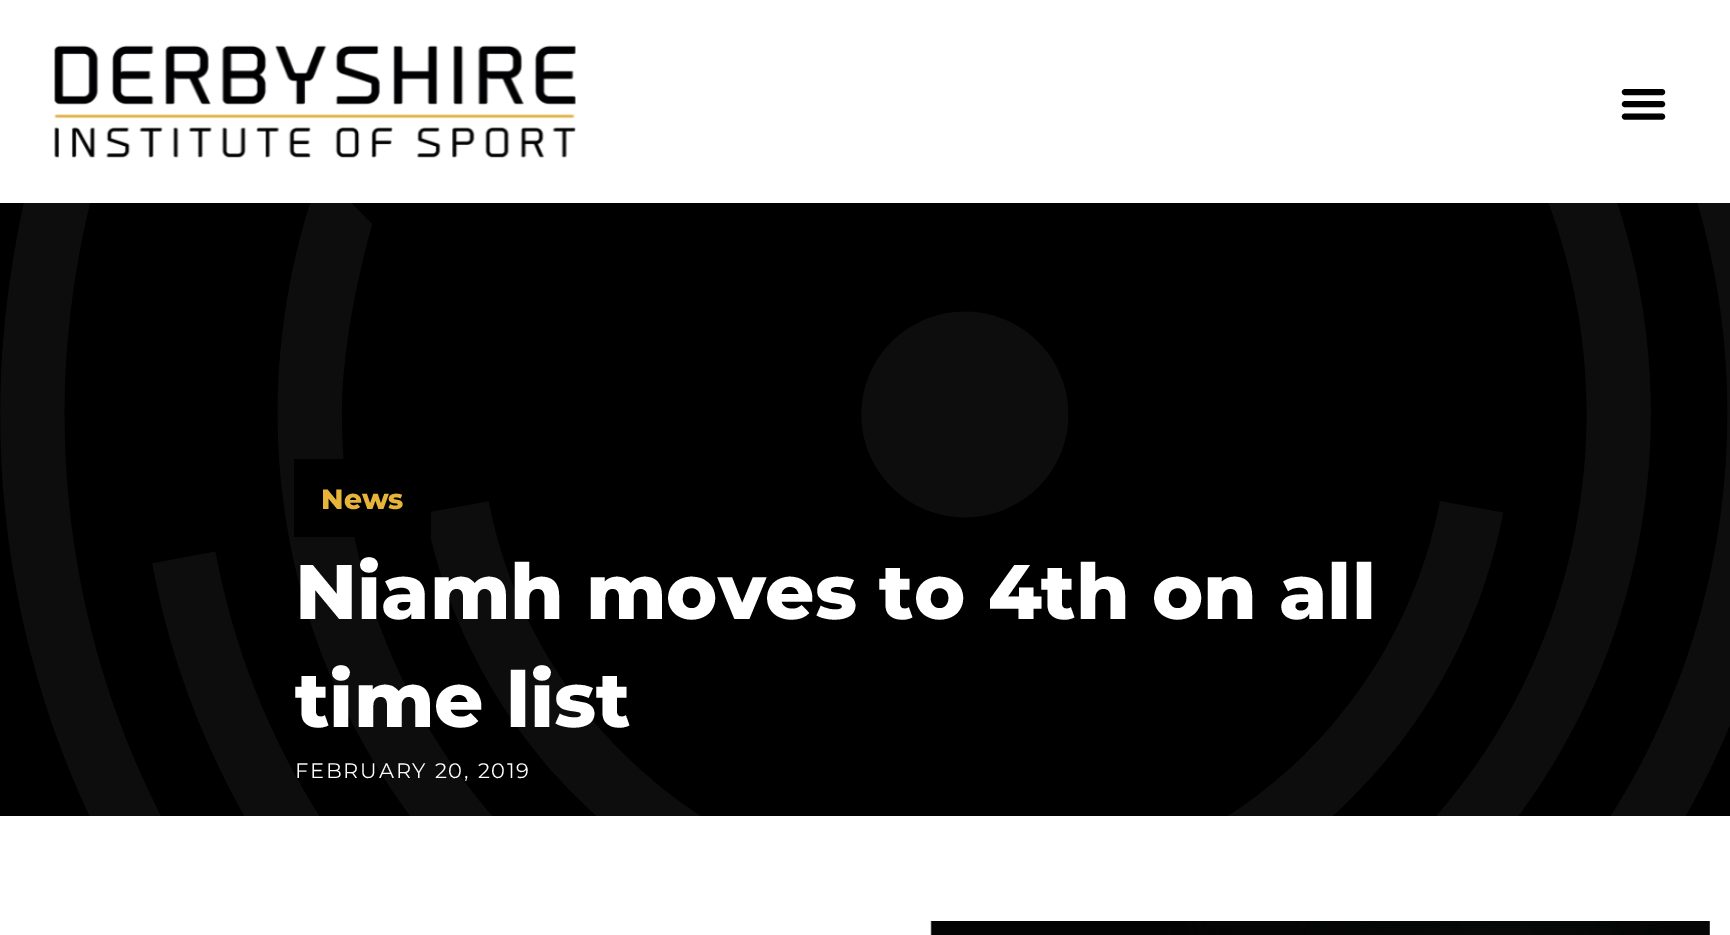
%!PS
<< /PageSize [1730 935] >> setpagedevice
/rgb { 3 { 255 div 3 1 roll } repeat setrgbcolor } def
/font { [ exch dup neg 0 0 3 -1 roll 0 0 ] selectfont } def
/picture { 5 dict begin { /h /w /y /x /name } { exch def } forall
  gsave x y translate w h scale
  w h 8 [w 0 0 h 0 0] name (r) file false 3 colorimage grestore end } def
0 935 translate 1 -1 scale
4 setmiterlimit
255 255 255 rgb
0 0 1730 935 rectfill
(img/1.rgb) 54 45 522 113 picture
0 0 0 rgb
6.1 setlinewidth
1 setlinecap
1625 116.5 moveto 1662 116.5 lineto 1625 104 moveto 1662 104 lineto 1625 92 moveto 1662 92 lineto stroke
0 203 1730 613 rectfill
(img/2.rgb) 0 203 1730 613 picture
294 459 137 78 rectfill
(img/3.rgb) 930 921 780 14 picture
/Montserrat-ExtraBold 28 font
229 180 57 rgb
321 509 moveto (News) show
/Montserrat-ExtraBold 77 font
255 255 255 rgb
295 619 moveto (Niamh moves to 4th on all) show
295 727 moveto (time list) show
/Montserrat-Regular 21 font
295 778 moveto 1.75 0 (FEBRUARY 20, 2019) ashow
showpage
